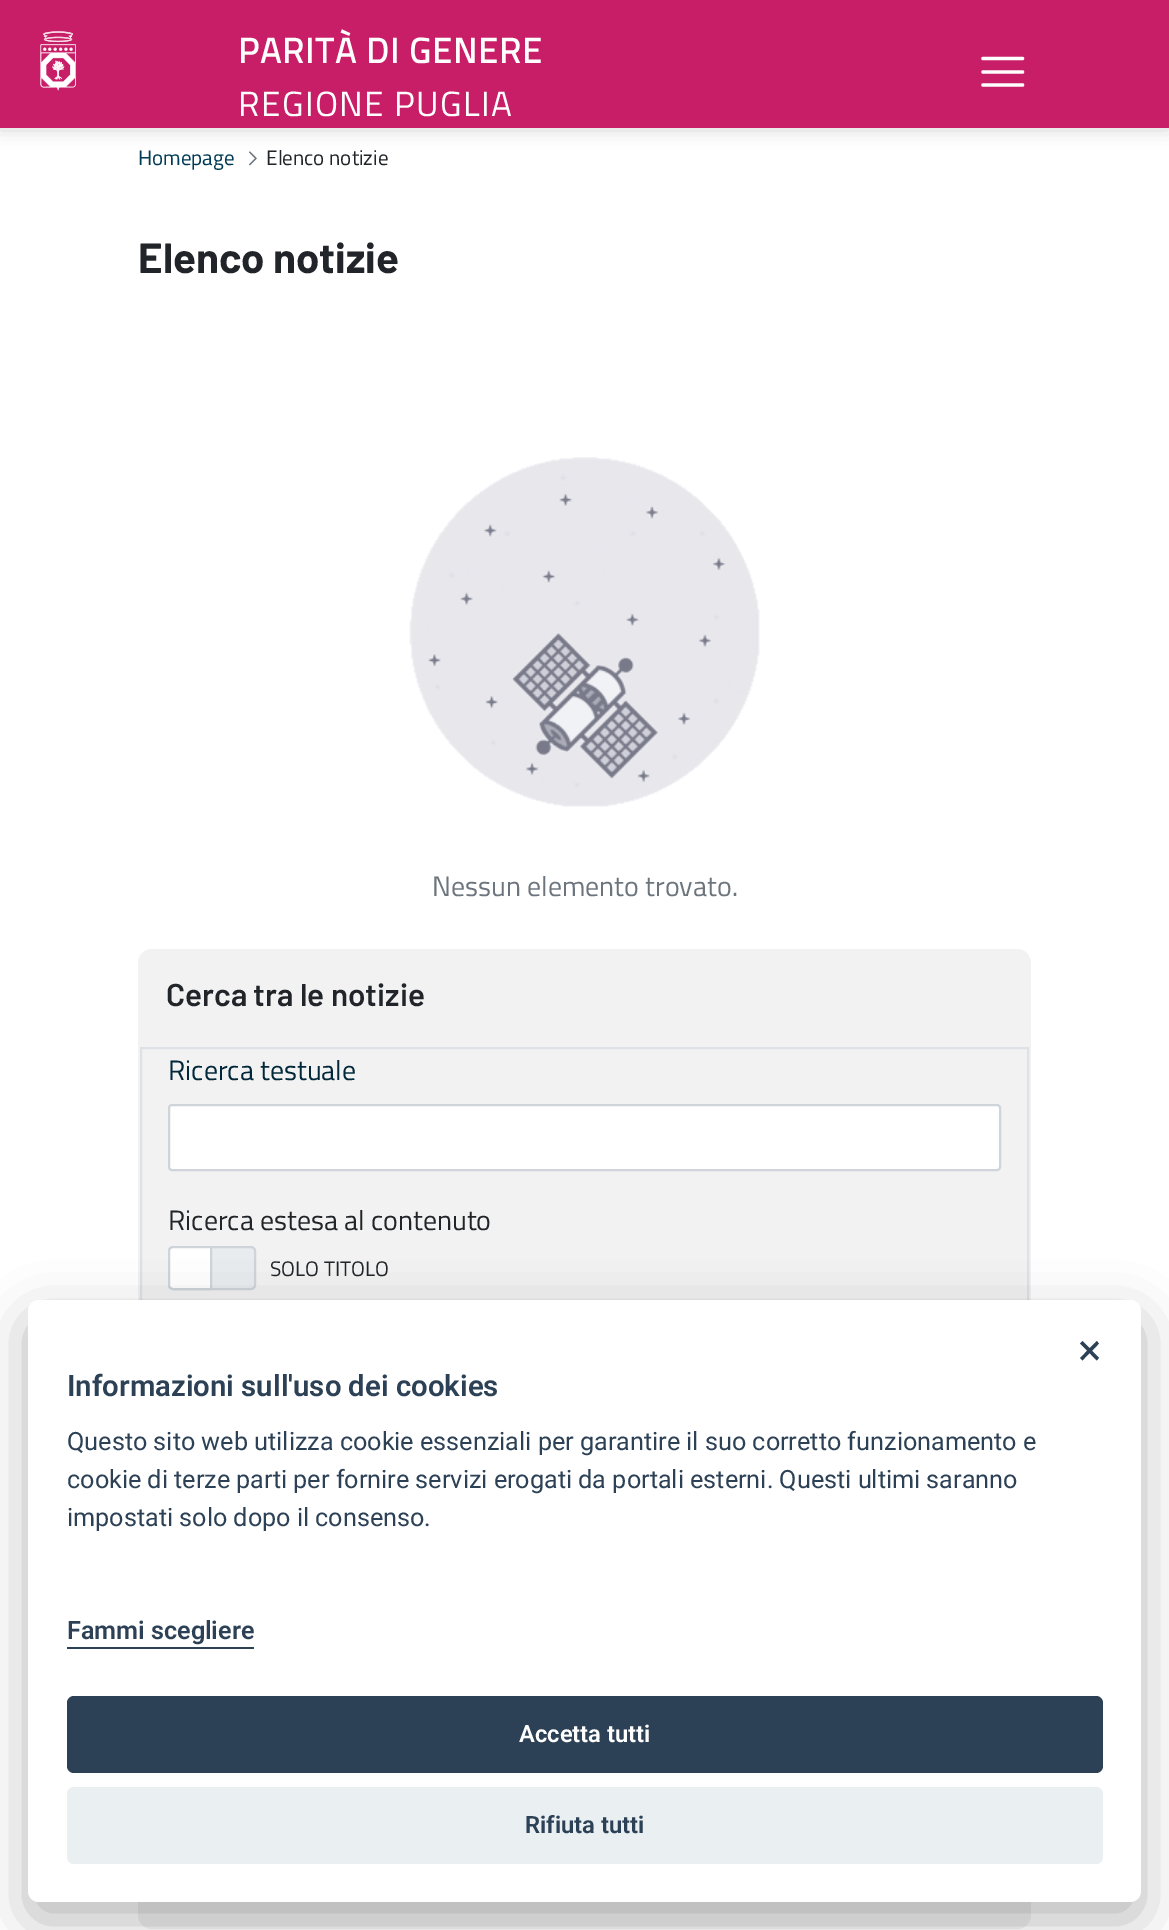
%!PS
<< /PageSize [1169 1930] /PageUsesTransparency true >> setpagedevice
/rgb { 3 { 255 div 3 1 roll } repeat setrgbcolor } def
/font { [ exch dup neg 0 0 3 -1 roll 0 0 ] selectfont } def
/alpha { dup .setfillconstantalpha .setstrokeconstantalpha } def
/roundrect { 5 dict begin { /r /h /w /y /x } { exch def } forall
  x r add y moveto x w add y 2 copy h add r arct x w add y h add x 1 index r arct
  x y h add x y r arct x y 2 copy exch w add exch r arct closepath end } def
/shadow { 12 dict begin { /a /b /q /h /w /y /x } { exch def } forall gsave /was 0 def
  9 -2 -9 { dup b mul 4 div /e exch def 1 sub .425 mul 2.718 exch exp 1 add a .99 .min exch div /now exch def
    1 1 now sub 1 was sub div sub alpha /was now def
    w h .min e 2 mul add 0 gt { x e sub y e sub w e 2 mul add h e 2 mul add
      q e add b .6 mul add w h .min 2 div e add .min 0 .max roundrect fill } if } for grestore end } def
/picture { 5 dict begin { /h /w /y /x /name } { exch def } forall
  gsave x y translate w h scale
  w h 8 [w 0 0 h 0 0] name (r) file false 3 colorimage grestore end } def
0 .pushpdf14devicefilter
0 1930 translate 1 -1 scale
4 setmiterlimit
255 255 255 rgb
0 0 1169 1930 rectfill
0 0 0 rgb
0 2 1169 128 0 9 0.16 shadow
200 29 103 rgb
0 0 1169 128 rectfill
(img/1.rgb) 40 31 36 60 picture
255 255 255 rgb
3.3 setlinewidth
1 setlinecap
983 58.5 moveto 1022.5 58.5 lineto 983 72 moveto 1022.5 72 lineto 983 85 moveto 1022.5 85 lineto stroke
(img/2.rgb) 249 151 8 15 picture
(img/3.rgb) 409 457 351 350 picture
242 242 242 rgb
138 949 893 980 14 roundrect fill
222 226 230 rgb
2 setlinewidth
0 setlinecap
141 1048 887 285 rectstroke
255 255 255 rgb
169 1105 831 65 3 roundrect gsave fill grestore
206 212 218 rgb
stroke
233 236 239 rgb
169 1247 86 42 4 roundrect gsave fill grestore
206 212 218 rgb
stroke
255 255 255 rgb
173 1247 moveto 211 1247 lineto 211 1289 lineto 173 1289 lineto 171 1289 169 1287 169 1285 curveto 169 1251 lineto 169 1249 171 1247 173 1247 curveto closepath gsave fill grestore
206 212 218 rgb
stroke
2 2 3 rgb
28 1318 1113 602 11 26 0.28 shadow
255 255 255 rgb
28 1300 1113 602 11 roundrect fill
45 65 86 rgb
67 1647 187 2 rectfill
67 1696 1036 77 7 roundrect fill
234 239 242 rgb
67 1787 1036 77 7 roundrect fill
/TitilliumWeb-Bold 35 font
255 255 255 rgb
238 63 moveto 1.4 0 (PARITÀ DI GENERE) ashow
/TitilliumWeb-Regular 35 font
238 116 moveto 1.4 0 (REGIONE PUGLIA) ashow
/TitilliumWeb-Regular 21 font
0 58 84 rgb
138 165 moveto (Homepage) show
33 37 41 rgb
266 165 moveto (Elenco notizie) show
/Barlow-Bold 42 font
138 273 moveto (Elenco notizie) show
/TitilliumWeb-Regular 28 font
108 117 125 rgb
432 896 moveto (Nessun elemento trovato.) show
/Barlow-SemiBold 31.5 font
33 37 41 rgb
166 1006 moveto (Cerca tra le notizie) show
/TitilliumWeb-Regular 28 font
1 40 58 rgb
168 1080 moveto (Ricerca testuale) show
33 37 41 rgb
168 1230 moveto (Ricerca estesa al contenuto) show
/TitilliumWeb-Regular 21 font
270 1276 moveto (SOLO TITOLO) show
/Roboto-Regular 44 font
45 65 86 rgb
1078 1365 moveto (×) show
/Roboto-SemiBold 29.4 font
67 1396 moveto (Informazioni sull'uso dei cookies) show
/Roboto-Regular 25.2 font
[
  [(Questo sito web utilizza cookie essenziali per garantire il suo corretto funzionamento e) 67 1450]
  [(cookie di terze parti per fornire servizi erogati da portali esterni. Questi ultimi saranno) 67 1488]
  [(impostati solo dopo il consenso.) 67 1526]
] { aload pop moveto show } forall
/Roboto-SemiBold 25.2 font
67 1639 moveto (Fammi scegliere) show
/Roboto-SemiBold 23.75 font
255 255 255 rgb
519 1742 moveto (Accetta tutti) show
45 65 86 rgb
525 1833 moveto (Rifiuta tutti) show
.poppdf14devicefilter showpage
